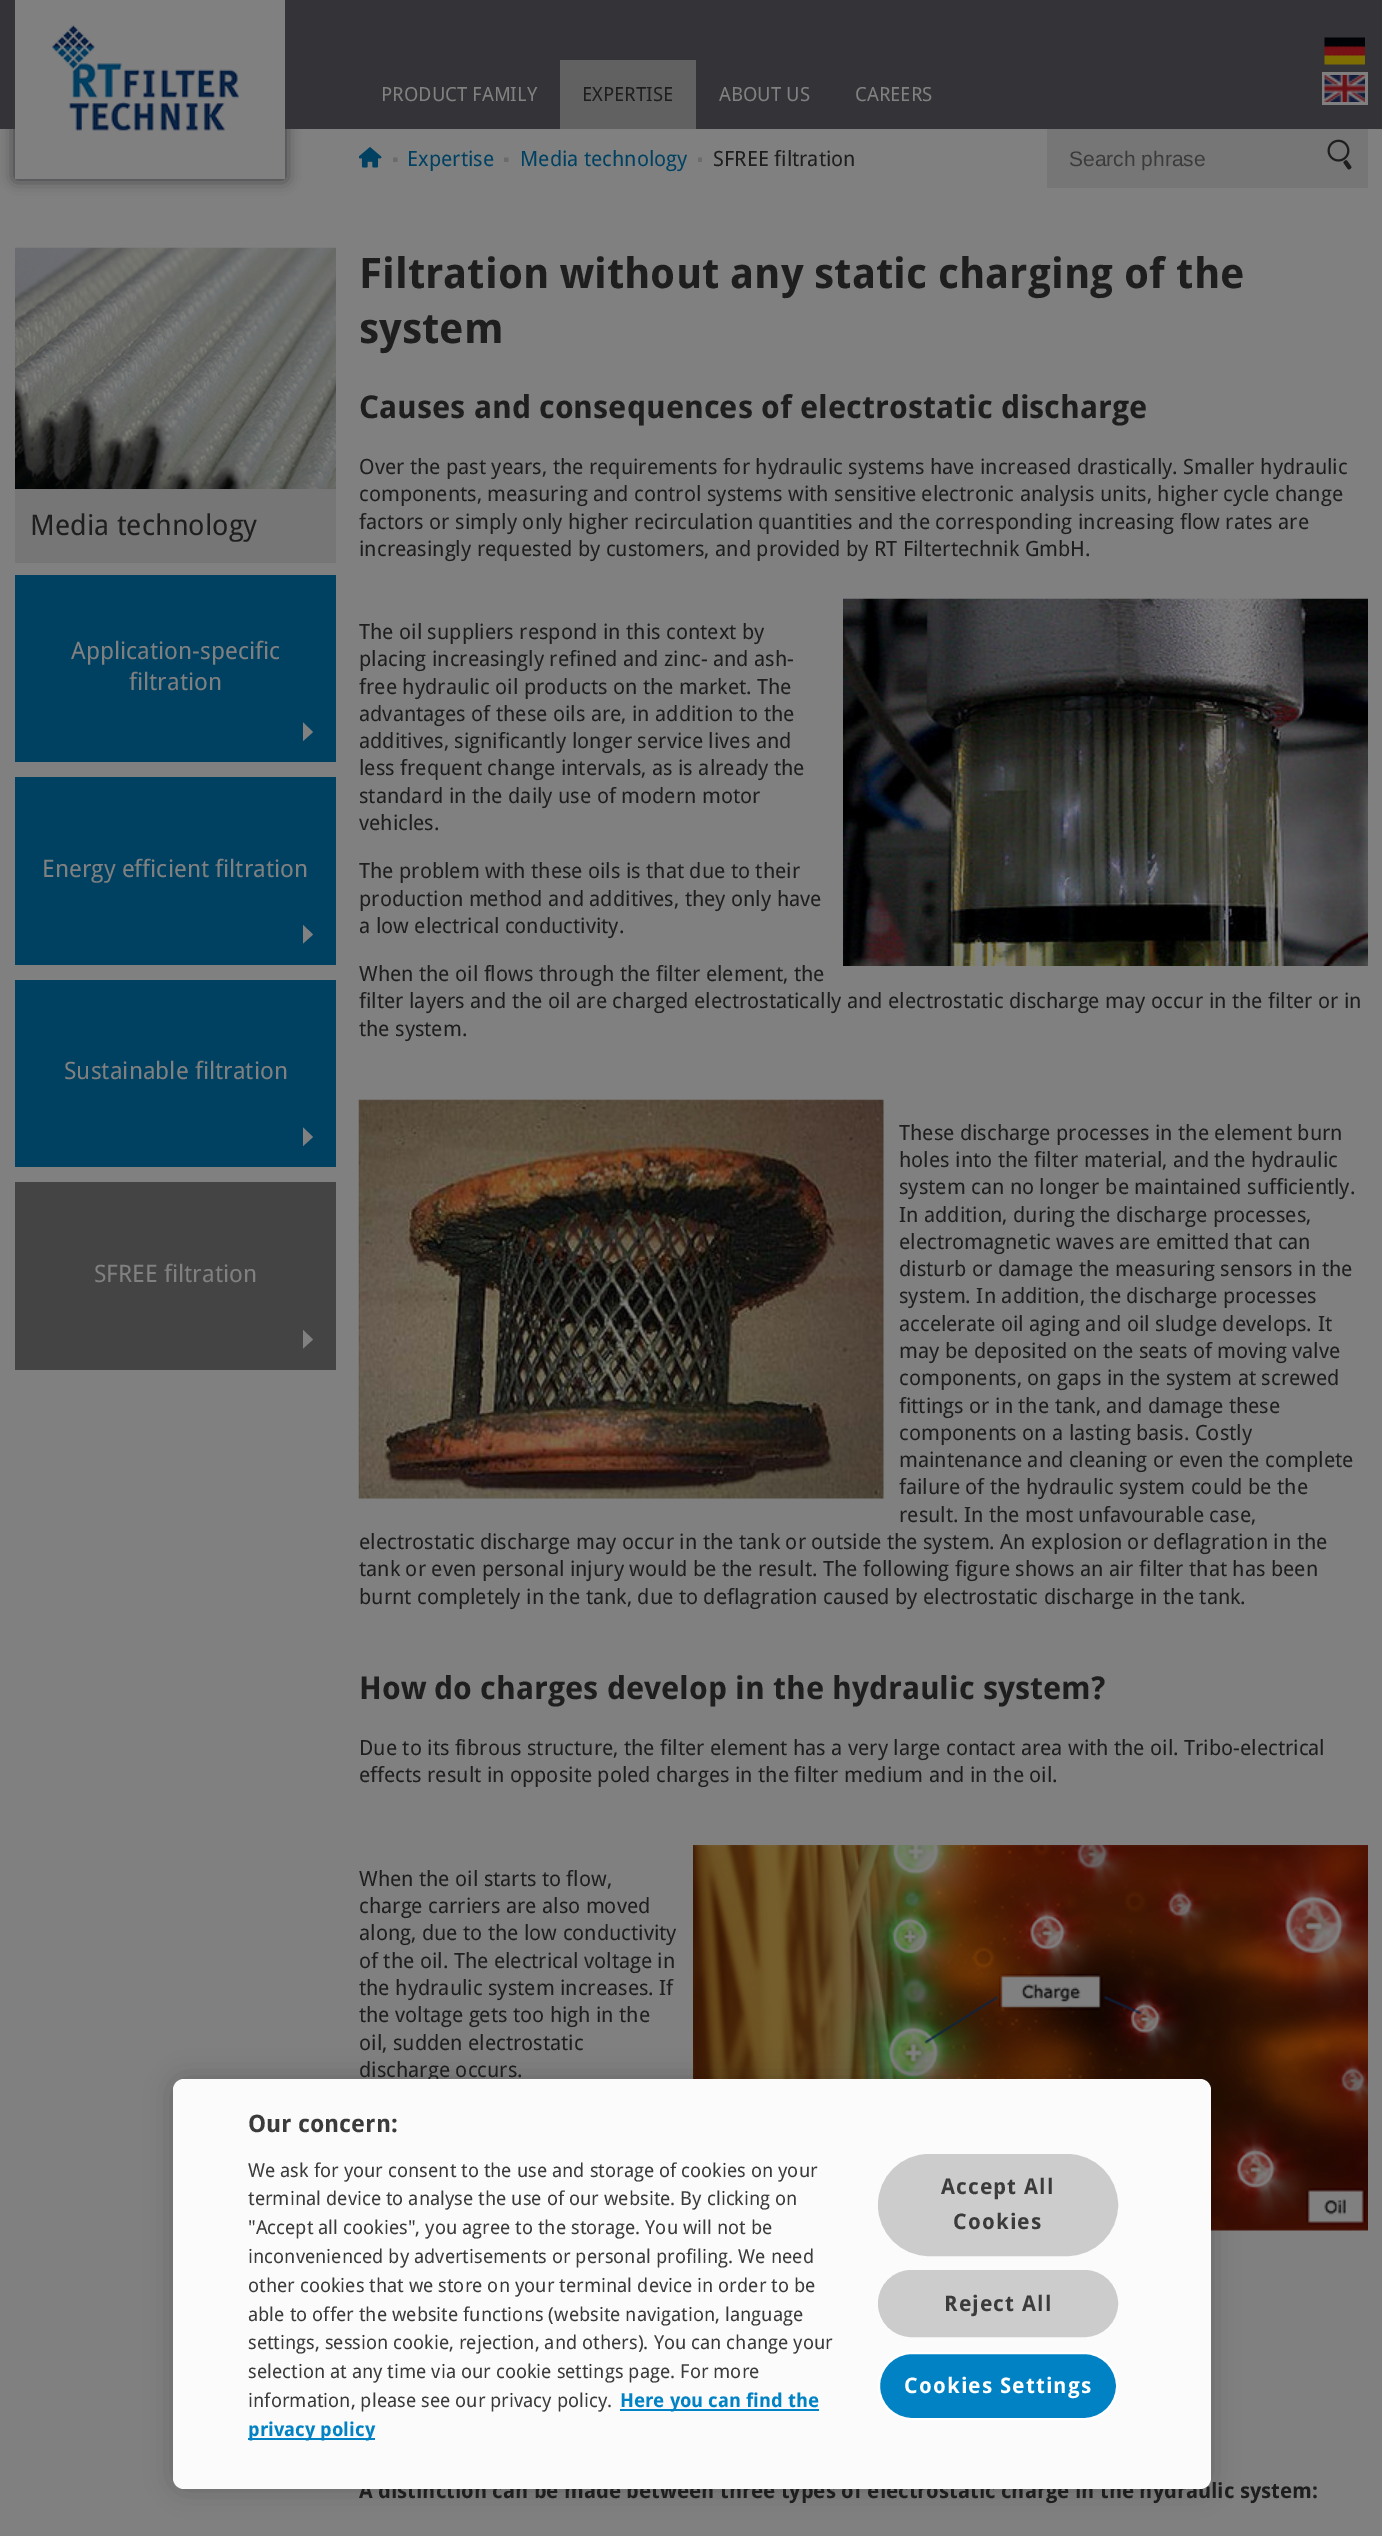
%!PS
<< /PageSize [1382 2536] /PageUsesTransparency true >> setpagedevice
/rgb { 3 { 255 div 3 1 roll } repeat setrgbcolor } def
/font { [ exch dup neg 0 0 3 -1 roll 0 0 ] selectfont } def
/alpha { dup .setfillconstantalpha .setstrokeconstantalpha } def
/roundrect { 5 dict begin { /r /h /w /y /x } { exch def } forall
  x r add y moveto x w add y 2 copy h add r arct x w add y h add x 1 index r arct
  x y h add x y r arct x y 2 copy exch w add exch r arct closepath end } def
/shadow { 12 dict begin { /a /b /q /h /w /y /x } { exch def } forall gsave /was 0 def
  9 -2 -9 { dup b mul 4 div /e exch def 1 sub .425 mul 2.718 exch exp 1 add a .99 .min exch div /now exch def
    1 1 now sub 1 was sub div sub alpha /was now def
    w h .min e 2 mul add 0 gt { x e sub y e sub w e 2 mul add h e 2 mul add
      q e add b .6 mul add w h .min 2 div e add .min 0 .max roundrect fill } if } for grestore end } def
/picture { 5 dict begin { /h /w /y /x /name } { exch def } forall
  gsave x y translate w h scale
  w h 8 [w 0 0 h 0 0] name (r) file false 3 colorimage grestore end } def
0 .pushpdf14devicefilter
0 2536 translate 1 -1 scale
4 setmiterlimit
128 128 128 rgb
0 0 1382 2536 rectfill
52 52 56 rgb
0 0 1382 129 rectfill
15 0 270 179 0 7.5 1 shadow
128 128 128 rgb
15 0 270 179 rectfill
(img/1.rgb) 52 25 187 106 picture
97 97 97 rgb
560 60 136 69 rectfill
(img/2.rgb) 1324 37 41 28 picture
128 128 128 rgb
1322 72 46 33 rectfill
(img/3.rgb) 1324 75 41 27 picture
(img/4.rgb) 359 147 23 21 picture
107 107 107 rgb
393 157.5 moveto 397.5 157.5 lineto 397.5 162 lineto 393 162 lineto closepath fill
504 157.5 moveto 508.5 157.5 lineto 508.5 162 lineto 504 162 lineto closepath fill
gsave
698 129 157 60 rectclip
697.5 157.5 moveto 702 157.5 lineto 702 162 lineto 697.5 162 lineto closepath fill
grestore
118 118 118 rgb
1047 129 321 59 rectfill
(img/5.rgb) 1327 139 25 31 picture
(img/6.rgb) 15 247 321 242 picture
15 489 321 74 rectfill
0 65 98 rgb
15 575 321 187 rectfill
128 128 128 rgb
313 732 moveto 303 741 lineto 303 722.5 lineto closepath fill
0 65 98 rgb
15 777 321 188 rectfill
128 128 128 rgb
313 934.5 moveto 303 943.5 lineto 303 925 lineto closepath fill
0 65 98 rgb
15 980 321 187 rectfill
128 128 128 rgb
313 1137 moveto 303 1146 lineto 303 1127.5 lineto closepath fill
68 68 68 rgb
15 1182 321 188 rectfill
128 128 128 rgb
313 1339.5 moveto 303 1348.5 lineto 303 1330 lineto closepath fill
(img/7.rgb) 843 598 525 368 picture
(img/8.rgb) 358 1099 526 400 picture
(img/9.rgb) 693 1845 675 386 picture
0 0 0 rgb
173 2079 1038 410 11 13.5 0.2 shadow
/DroidSans-Regular 19.5 font
128 128 128 rgb
381 101 moveto (PRODUCT FAMILY) show
30 30 30 rgb
582 101 moveto (EXPERTISE) show
128 128 128 rgb
719 101 moveto (ABOUT US) show
855 101 moveto (CAREERS) show
/DroidSans-Regular 21 font
0 65 98 rgb
407 166 moveto (Expertise) show
520 166 moveto (Media technology) show
30 30 30 rgb
713 166 moveto (SFREE filtration) show
/LiberationSans-Regular 21 font
59 59 59 rgb
1069 166 moveto (Search phrase) show
/DroidSans-Regular 28.5 font
30 30 30 rgb
30 535 moveto (Media technology) show
/DroidSans-Regular 24 font
128 128 128 rgb
[
  [(Application-specific) 71 659]
  [(filtration) 129 690]
  [(Energy efficient filtration) 42 877]
  [(Sustainable filtration) 64 1079]
  [(SFREE filtration) 94 1282]
] { aload pop moveto show } forall
/DroidSans-Bold 42 font
30 30 30 rgb
359 288 moveto (Filtration without any static charging of the) show
359 343 moveto (system) show
/DroidSans-Bold 31.5 font
359 418 moveto (Causes and consequences of electrostatic discharge) show
/DroidSans-Regular 21 font
[
  [(Over the past years, the requirements for hydraulic systems have increased drastically. Smaller hydraulic) 359 474]
  [(components, measuring and control systems with sensitive electronic analysis units, higher cycle change) 359 501]
  [(factors or simply only higher recirculation quantities and the corresponding increasing flow rates are) 359 529]
  [(increasingly requested by customers, and provided by RT Filtertechnik GmbH.) 359 556]
  [(The oil suppliers respond in this context by) 359 639]
  [(placing increasingly refined and zinc- and ash-) 359 666]
  [(free hydraulic oil products on the market. The) 359 694]
  [(advantages of these oils are, in addition to the) 359 721]
  [(additives, significantly longer service lives and) 359 748]
  [(less frequent change intervals, as is already the) 359 775]
  [(standard in the daily use of modern motor) 359 803]
  [(vehicles.) 359 830]
  [(The problem with these oils is that due to their) 359 878]
  [(production method and additives, they only have) 359 906]
  [(a low electrical conductivity.) 359 933]
  [(When the oil flows through the filter element, the) 359 981]
  [(filter layers and the oil are charged electrostatically and electrostatic discharge may occur in the filter or in) 359 1008]
  [(the system.) 359 1036]
  [(These discharge processes in the element burn) 899 1140]
  [(holes into the filter material, and the hydraulic) 899 1167]
  [(system can no longer be maintained sufficiently.) 899 1194]
  [(In addition, during the discharge processes,) 899 1222]
  [(electromagnetic waves are emitted that can) 899 1249]
  [(disturb or damage the measuring sensors in the) 899 1276]
  [(system. In addition, the discharge processes) 899 1303]
  [(accelerate oil aging and oil sludge develops. It) 899 1331]
  [(may be deposited on the seats of moving valve) 899 1358]
  [(components, on gaps in the system at screwed) 899 1385]
  [(fittings or in the tank, and damage these) 899 1413]
  [(components on a lasting basis. Costly) 899 1440]
  [(maintenance and cleaning or even the complete) 899 1467]
  [(failure of the hydraulic system could be the) 899 1494]
  [(result. In the most unfavourable case,) 899 1522]
  [(electrostatic discharge may occur in the tank or outside the system. An explosion or deflagration in the) 359 1549]
  [(tank or even personal injury would be the result. The following figure shows an air filter that has been) 359 1576]
  [(burnt completely in the tank, due to deflagration caused by electrostatic discharge in the tank.) 359 1604]
] { aload pop moveto show } forall
/DroidSans-Bold 31.5 font
359 1699 moveto (How do charges develop in the hydraulic system?) show
/DroidSans-Regular 21 font
[
  [(Due to its fibrous structure, the filter element has a very large contact area with the oil. Tribo-electrical) 359 1755]
  [(effects result in opposite poled charges in the filter medium and in the oil.) 359 1782]
  [(When the oil starts to flow,) 359 1886]
  [(charge carriers are also moved) 359 1913]
  [(along, due to the low conductivity) 359 1940]
  [(of the oil. The electrical voltage in) 359 1968]
  [(the hydraulic system increases. If) 359 1995]
  [(the voltage gets too high in the) 359 2022]
  [(oil, sudden electrostatic) 359 2050]
  [(discharge occurs.) 359 2077]
] { aload pop moveto show } forall
/DroidSans-Bold 21 font
359 2498 moveto (A distinction can be made between three types of electrostatic charge in the hydraulic system:) show
251 251 251 rgb
173 2079 1038 410 11 roundrect fill
/DroidSans-Bold 24 font
59 59 59 rgb
248 2132 moveto (Our concern:) show
/DroidSans-Regular 19.2 font
[
  [(We ask for your consent to the use and storage of cookies on your) 248 2177]
  [(terminal device to analyse the use of our website. By clicking on) 248 2205]
  [("Accept all cookies", you agree to the storage. You will not be) 248 2234]
  [(inconvenienced by advertisements or personal profiling. We need) 248 2263]
  [(other cookies that we store on your terminal device in order to be) 248 2292]
  [(able to offer the website functions \(website navigation, language) 248 2321]
  [(settings, session cookie, rejection, and others\). You can change your) 248 2349]
  [(selection at any time via our cookie settings page. For more) 248 2378]
  [(information, please see our privacy policy.) 248 2407]
] { aload pop moveto show } forall
0 130 196 rgb
620 2409 199 2 rectfill
/DroidSans-Bold 19.2 font
620 2407 moveto (Here you can find the) show
248 2438 127 2 rectfill
248 2436 moveto (privacy policy) show
204 204 204 rgb
879 2155 238 100 50 roundrect gsave fill grestore
2 setlinewidth
stroke
/DroidSans-Bold 21.5 font
59 59 59 rgb
941 2194 moveto 1.1 0 (Accept All) ashow
953 2229 moveto 1.1 0 (Cookies) ashow
204 204 204 rgb
879 2271 238 65 32.5 roundrect gsave fill grestore
stroke
59 59 59 rgb
944 2311 moveto 1.1 0 (Reject All) ashow
0 130 196 rgb
879 2353 238 66 33 roundrect gsave fill grestore
255 255 255 rgb
stroke
904 2393 moveto 1.1 0 (Cookies Settings) ashow
.poppdf14devicefilter showpage
